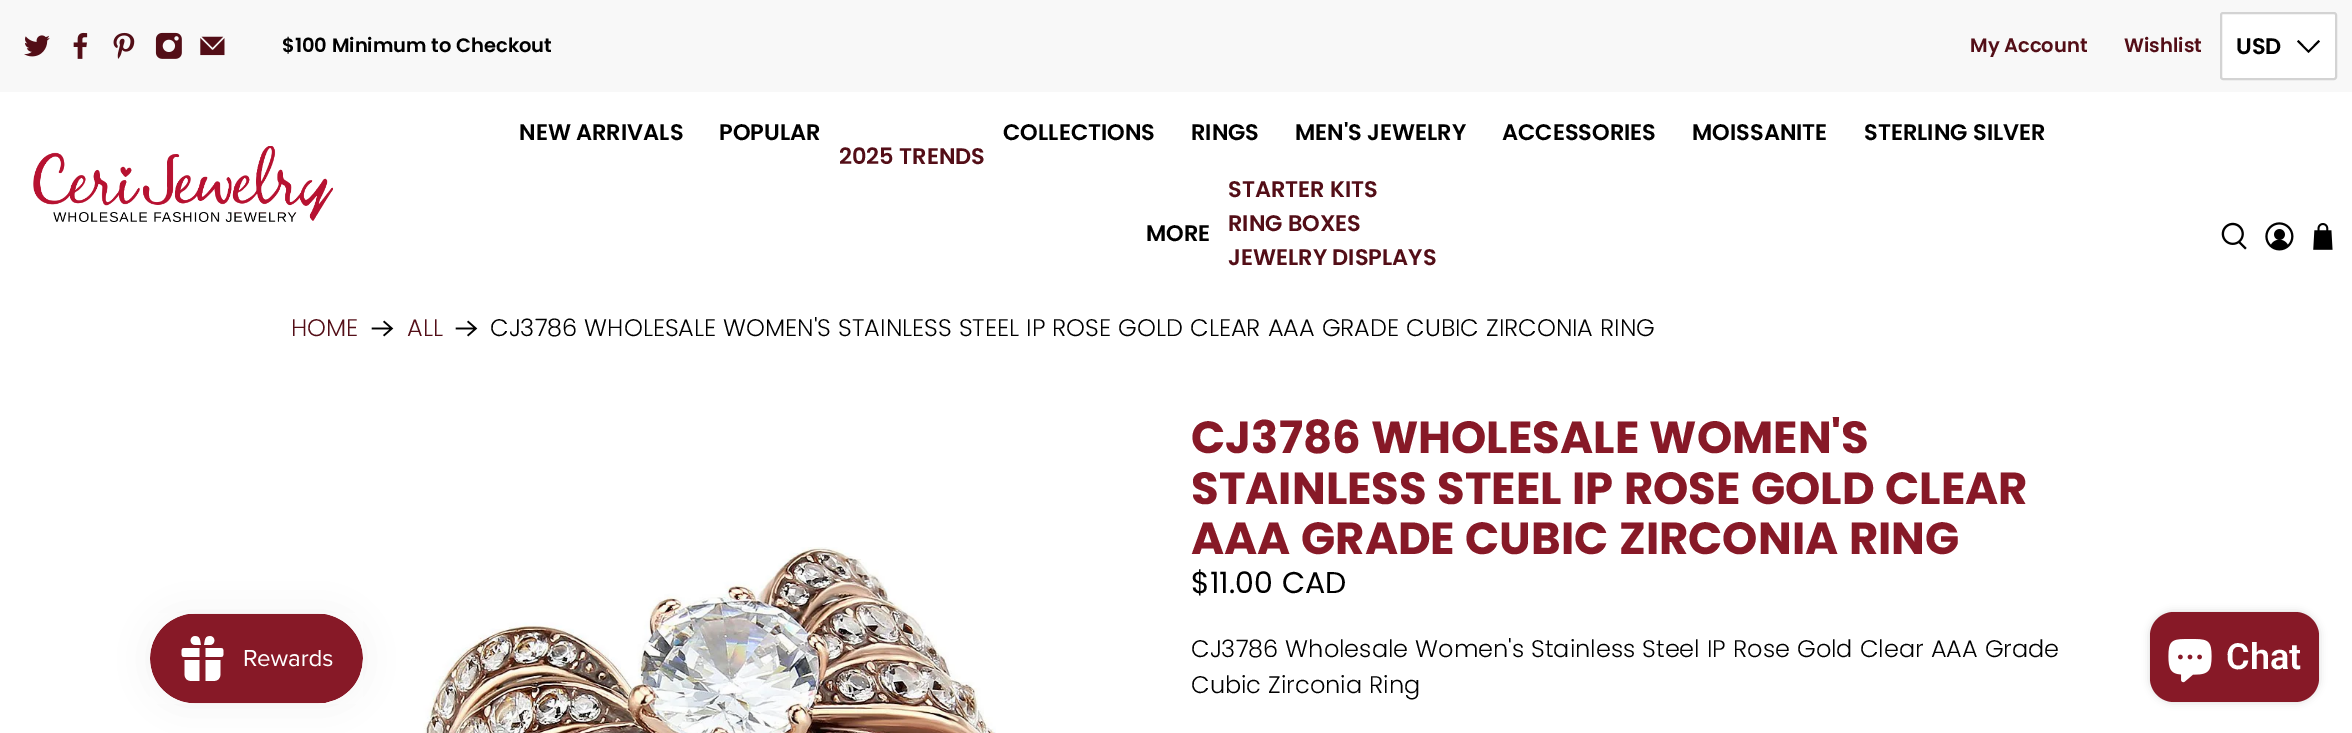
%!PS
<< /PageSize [2352 733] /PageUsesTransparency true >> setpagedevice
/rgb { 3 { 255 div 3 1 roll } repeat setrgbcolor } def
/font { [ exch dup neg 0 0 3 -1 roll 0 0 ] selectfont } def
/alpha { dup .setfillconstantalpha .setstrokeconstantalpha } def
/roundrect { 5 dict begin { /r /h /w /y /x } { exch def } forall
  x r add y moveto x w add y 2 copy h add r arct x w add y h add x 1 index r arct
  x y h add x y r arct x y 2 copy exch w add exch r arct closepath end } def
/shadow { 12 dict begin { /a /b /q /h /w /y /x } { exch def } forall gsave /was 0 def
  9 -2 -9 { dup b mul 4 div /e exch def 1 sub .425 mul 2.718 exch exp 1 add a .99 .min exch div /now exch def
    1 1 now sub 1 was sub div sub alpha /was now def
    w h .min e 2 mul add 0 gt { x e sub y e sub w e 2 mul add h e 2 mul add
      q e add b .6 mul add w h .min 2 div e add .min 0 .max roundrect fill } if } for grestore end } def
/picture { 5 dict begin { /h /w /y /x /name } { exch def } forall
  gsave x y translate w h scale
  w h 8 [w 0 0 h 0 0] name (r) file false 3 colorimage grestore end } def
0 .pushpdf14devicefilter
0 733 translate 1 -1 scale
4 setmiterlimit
255 255 255 rgb
0 0 2352 733 rectfill
248 248 248 rgb
0 0 2352 92 rectfill
(img/1.rgb) 24 35 26 22 picture
(img/2.rgb) 73 32 15 27 picture
(img/3.rgb) 113 32 22 27 picture
(img/4.rgb) 155 32 27 27 picture
(img/5.rgb) 200 36 25 20 picture
255 255 255 rgb
2221 13 115 66 2 roundrect gsave fill grestore
211 211 211 rgb
2 setlinewidth
stroke
0 0 0 rgb
2308.5 53 moveto 2297 41.5 lineto 2298.5 40 lineto 2308.5 50.5 lineto 2318.5 40 lineto 2320 41.5 lineto closepath fill
(img/6.rgb) 33 146 300 76 picture
(img/7.rgb) 2221 222 26 28 picture
(img/8.rgb) 2265 222 29 29 picture
(img/9.rgb) 2313 223 20 27 picture
150 614 213 90 45 19 0.05 shadow
(img/10.rgb) 150 613 213 91 picture
(img/11.rgb) 371 320 23 17 picture
(img/11.rgb) 455 320 23 17 picture
(img/12.rgb) 423 547 573 186 picture
2150 612 169 90 24 4 0.15 shadow
135 25 39 rgb
2150 612 169 90 24 roundrect fill
(img/13.rgb) 2168 639 44 44 picture
/Poppins-SemiBold 19.5 font
0 0 0 rgb
282 52 moveto ($100 Minimum to Checkout) show
83 14 23 rgb
1970 52 moveto (My Account) show
2124 52 moveto (Wishlist) show
/Poppins-SemiBold 22.5 font
0 0 0 rgb
[
  [(USD) 2236 54]
  [(NEW ARRIVALS) 519 140]
  [(POPULAR) 719 140]
] { aload pop moveto show } forall
83 14 23 rgb
839 164 moveto (2025 TRENDS) show
0 0 0 rgb
[
  [(COLLECTIONS) 1003 140]
  [(RINGS) 1191 140]
  [(MEN'S JEWELRY) 1295 140]
  [(ACCESSORIES) 1502 140]
  [(MOISSANITE) 1692 140]
  [(STERLING SILVER) 1864 140]
  [(MORE) 1146 241]
] { aload pop moveto show } forall
83 14 23 rgb
[
  [(STARTER KITS) 1228 197]
  [(RING BOXES) 1228 231]
  [(JEWELRY DISPLAYS) 1228 265]
] { aload pop moveto show } forall
/Poppins-Light 24 font
291 336 moveto (HOME) show
407 336 moveto (ALL) show
0 0 0 rgb
490 336 moveto (CJ3786 WHOLESALE WOMEN'S STAINLESS STEEL IP ROSE GOLD CLEAR AAA GRADE CUBIC ZIRCONIA RING) show
/Poppins-Bold 45 font
135 25 39 rgb
[
  [(CJ3786 WHOLESALE WOMEN'S) 1191 453]
  [(STAINLESS STEEL IP ROSE GOLD CLEAR) 1191 504]
  [(AAA GRADE CUBIC ZIRCONIA RING) 1191 554]
] { aload pop moveto show } forall
/Poppins-Regular 30 font
0 0 0 rgb
1191 593 moveto ($11.00 CAD) show
/Poppins-Light 24 font
1191 657 moveto (CJ3786 Wholesale Women's Stainless Steel IP Rose Gold Clear AAA Grade) show
1191 693 moveto (Cubic Zirconia Ring) show
/Roboto-SemiBold 36 font
255 255 255 rgb
2226 669 moveto (Chat) show
.poppdf14devicefilter showpage
